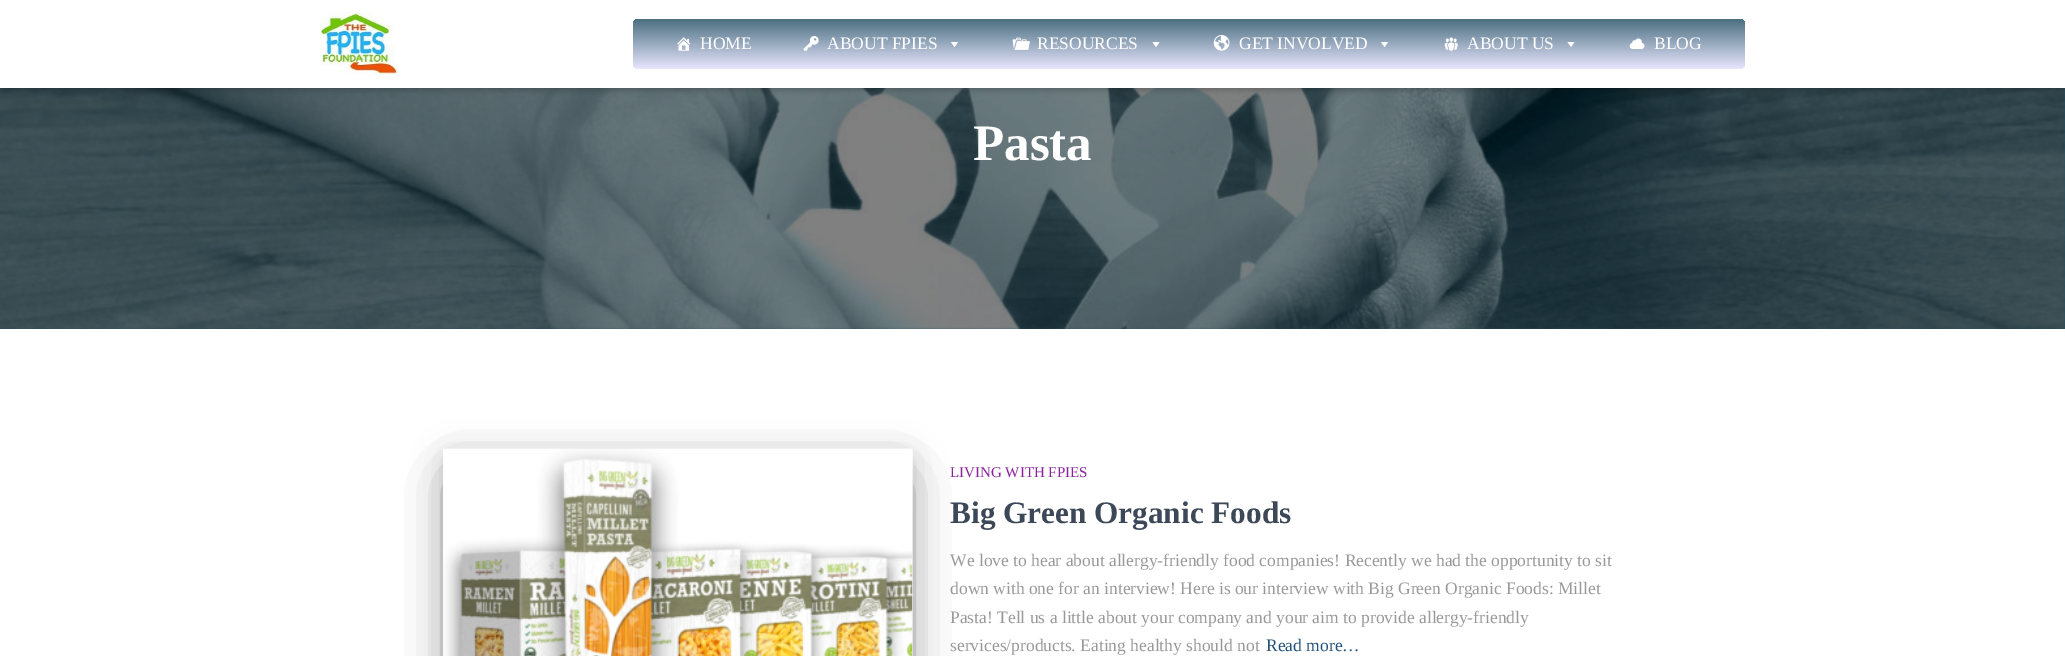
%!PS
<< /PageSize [2065 656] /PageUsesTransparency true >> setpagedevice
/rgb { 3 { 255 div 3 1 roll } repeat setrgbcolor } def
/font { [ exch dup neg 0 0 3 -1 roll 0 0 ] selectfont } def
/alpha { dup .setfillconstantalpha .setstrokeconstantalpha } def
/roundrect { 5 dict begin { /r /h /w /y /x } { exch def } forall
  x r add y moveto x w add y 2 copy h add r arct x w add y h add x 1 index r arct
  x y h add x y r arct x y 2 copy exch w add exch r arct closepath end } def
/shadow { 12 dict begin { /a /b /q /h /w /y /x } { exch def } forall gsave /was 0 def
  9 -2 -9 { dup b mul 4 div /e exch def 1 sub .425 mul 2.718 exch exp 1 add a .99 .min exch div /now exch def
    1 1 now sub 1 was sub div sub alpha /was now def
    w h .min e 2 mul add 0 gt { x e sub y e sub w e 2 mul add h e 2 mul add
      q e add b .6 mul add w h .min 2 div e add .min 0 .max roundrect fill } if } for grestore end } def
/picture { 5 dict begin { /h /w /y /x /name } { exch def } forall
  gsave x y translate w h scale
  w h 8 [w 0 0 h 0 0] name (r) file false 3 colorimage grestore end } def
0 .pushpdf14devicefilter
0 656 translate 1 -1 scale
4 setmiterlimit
23 82 103 rgb
0 0 2065 656 rectfill
(img/8.rgb) 0 88 2065 241 picture
0 0 0 rgb
3 8 2060 82 0 3 0.1 shadow
0 1 2065 88 0 6 0.12 shadow
8 9 2050 72 0 6 0.42 shadow
255 255 255 rgb
0 0 2065 88 rectfill
(img/1.rgb) 320 12 78 63 picture
gsave 633 19 1112 50 6 roundrect clip newpath
<< /ShadingType 2 /ColorSpace /DeviceRGB /Coords [1189 19 1189 69] /Extend [true true] /Function << /FunctionType 2 /Domain [0 1] /C0 [0.294 0.435 0.506] /C1 [0.91 0.902 0.996] /N 1 >> >> shfill grestore
(img/2.rgb) 677 37 14 14 picture
(img/3.rgb) 803 36 16 15 picture
958 42 moveto 954.5 47 lineto 951 42 lineto closepath fill
(img/4.rgb) 1012 37 18 13 picture
1159.5 42 moveto 1156 47 lineto 1152.5 42 lineto closepath fill
(img/5.rgb) 1213 35 17 16 picture
1388 42 moveto 1384.5 47 lineto 1381 42 lineto closepath fill
(img/6.rgb) 1444 37 14 14 picture
1574.5 42 moveto 1571 47 lineto 1567.5 42 lineto closepath fill
(img/7.rgb) 1629 38 16 11 picture
0 329 2065 327 rectfill
0 0 0 rgb
449 464 457 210 0 6 0.2 shadow
443 453 470 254 4 15.5 0.12 shadow
458 483 440 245 0 24 0.56 shadow
(img/9.rgb) 443 448 470 208 picture
/LiberationSerif-Regular 17.5 font
255 255 255 rgb
[
  [(HOME) 700 49]
  [(ABOUT FPIES) 827 49]
  [(RESOURCES) 1037 49]
  [(GET INVOLVED) 1239 49]
  [(ABOUT US) 1467 49]
  [(BLOG) 1654 49]
] { aload pop moveto show } forall
/LiberationSerif-Bold 51 font
973 160 moveto (Pasta) show
/LiberationSerif-Regular 15 font
137 34 155 rgb
950 477 moveto (LIVING WITH FPIES) show
/LiberationSerif-Bold 31.25 font
60 72 88 rgb
950 523 moveto (Big Green Organic Foods) show
/LiberationSerif-Regular 17.5 font
153 153 153 rgb
[
  [(We love to hear about allergy-friendly food companies! Recently we had the opportunity to sit) 950 566]
  [(down with one for an interview! Here is our interview with Big Green Organic Foods: Millet) 950 594]
  [(Pasta! Tell us a little about your company and your aim to provide allergy-friendly) 950 623]
  [(services/products. Eating healthy should not) 950 651]
] { aload pop moveto show } forall
35 82 124 rgb
1266 651 moveto (Read more…) show
.poppdf14devicefilter showpage
